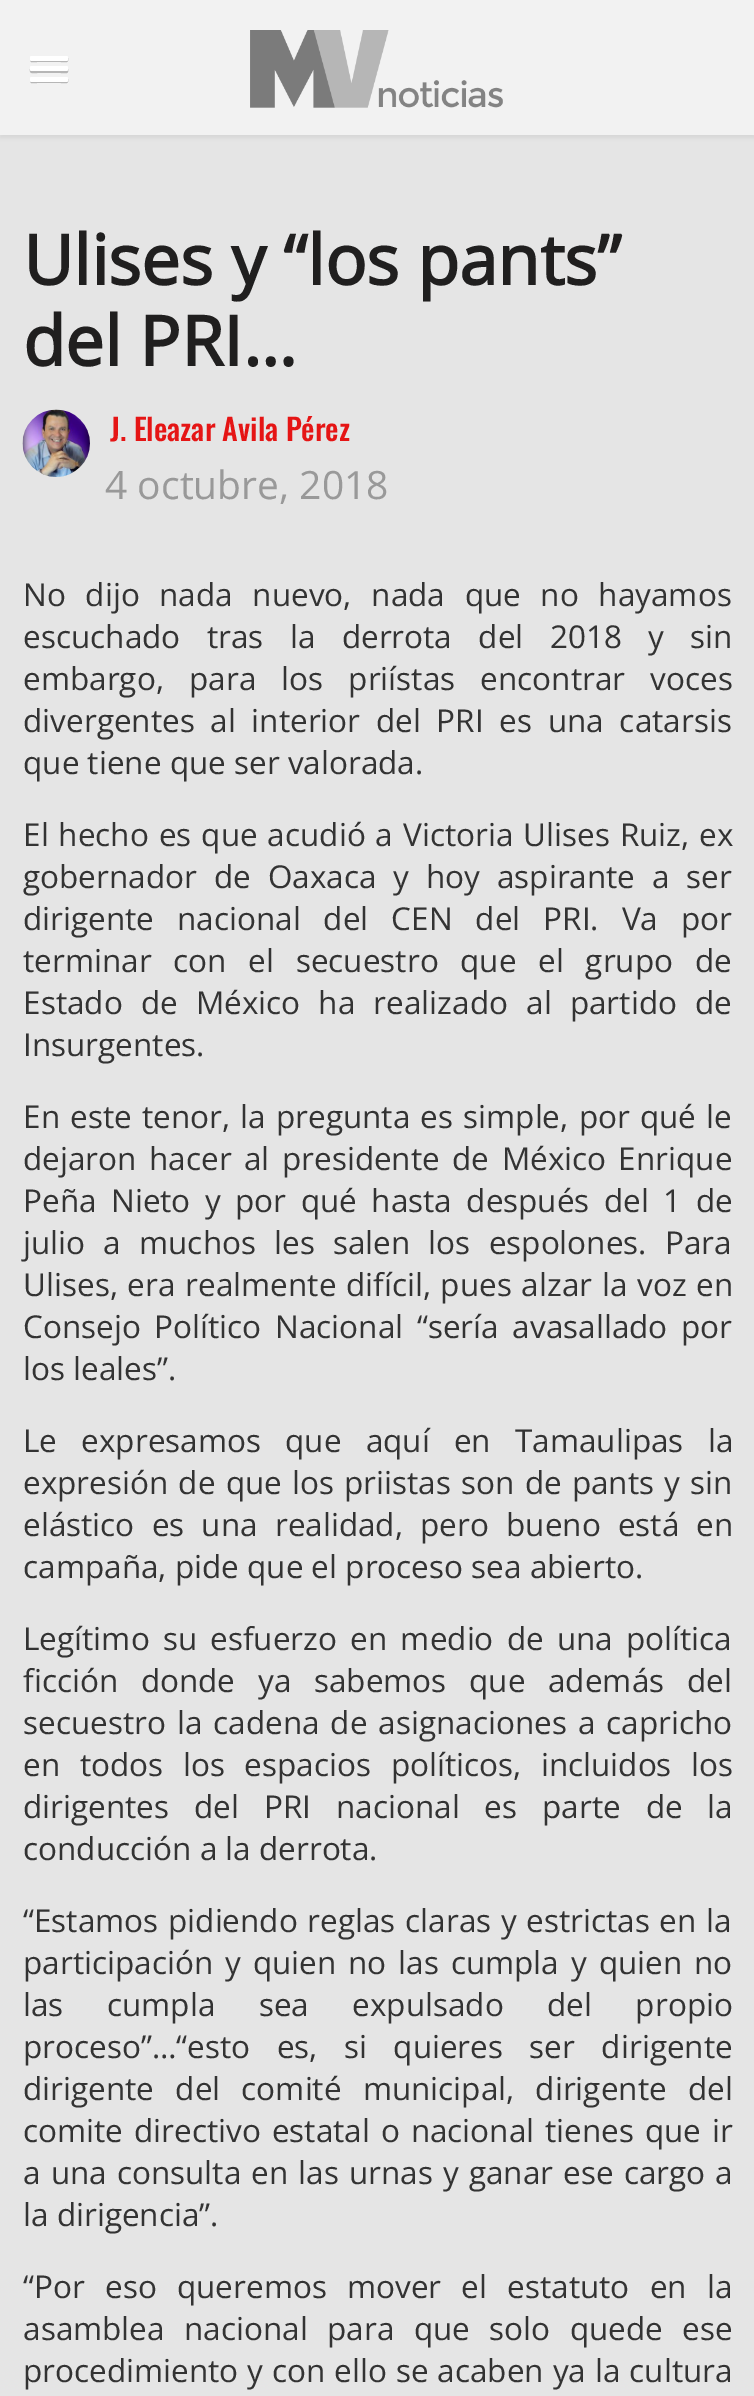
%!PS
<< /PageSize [754 2396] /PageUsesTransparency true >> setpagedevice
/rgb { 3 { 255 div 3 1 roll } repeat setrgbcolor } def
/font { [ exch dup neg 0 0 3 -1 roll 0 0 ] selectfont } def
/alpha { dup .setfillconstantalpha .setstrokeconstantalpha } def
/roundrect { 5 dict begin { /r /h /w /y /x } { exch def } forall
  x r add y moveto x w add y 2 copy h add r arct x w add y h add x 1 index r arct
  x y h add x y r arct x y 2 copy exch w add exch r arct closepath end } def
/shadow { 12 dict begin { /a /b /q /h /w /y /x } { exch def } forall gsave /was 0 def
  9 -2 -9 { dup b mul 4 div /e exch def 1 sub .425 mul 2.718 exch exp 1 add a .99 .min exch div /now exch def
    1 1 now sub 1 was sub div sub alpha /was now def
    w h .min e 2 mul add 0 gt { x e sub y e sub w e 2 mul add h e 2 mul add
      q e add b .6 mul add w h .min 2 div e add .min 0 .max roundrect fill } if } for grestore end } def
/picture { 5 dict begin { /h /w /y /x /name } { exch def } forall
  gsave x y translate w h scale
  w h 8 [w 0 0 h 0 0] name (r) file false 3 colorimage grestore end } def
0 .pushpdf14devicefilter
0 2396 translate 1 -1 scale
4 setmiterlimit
229 229 229 rgb
0 0 754 2396 rectfill
0 0 0 rgb
0 3 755 135 0 2 0.06 shadow
242 242 242 rgb
0 0 754 135 rectfill
182 182 182 rgb
30 58.5 moveto 30 63.5 31.5 62 37.5 62 curveto 60.5 62 lineto 63 62 67.5 63 68 61 curveto 68 60 68.5 58 67.5 57.5 curveto 67.5 58.5 lineto 67.5 59.5 67 60 66 60 curveto 31.5 60 lineto 30.5 60 30 59.5 30 58.5 curveto closepath fill
255 255 255 rgb
30 56 38 5 1.5 roundrect fill
182 182 182 rgb
30 69 moveto 29 74.5 33 73 37.5 73 curveto 60.5 73 lineto 63 73 67.5 74 68 72 curveto 68 71 68.5 69 67.5 68.5 curveto 67.5 69 lineto 67.5 70 67 70.5 66 70.5 curveto 31.5 70.5 lineto 31 70.5 30 70 30 69 curveto closepath fill
255 255 255 rgb
30 66 38 5 1.5 roundrect fill
182 182 182 rgb
30 79.5 moveto 30 84.5 31.5 83 37.5 83 curveto 60.5 83 lineto 63 83 67.5 84 68 82 curveto 68 81 68.5 79 67.5 78.5 curveto 67.5 79.5 lineto 67.5 80.5 67 81 66 81 curveto 31.5 81 lineto 30.5 81 30 80.5 30 79.5 curveto closepath fill
255 255 255 rgb
30 77 38 5 1.5 roundrect fill
(img/1.rgb) 250 30 253 78 picture
(img/2.rgb) 22 409 68 68 picture
/OpenSans-Bold 69 font
32 31 31 rgb
23 285 moveto (Ulises y “los pants”) show
23 366 moveto (del PRI…) show
/Oswald-Medium 30 font
229 21 21 rgb
110 441 moveto (J. Eleazar Avila Pérez) show
/OpenSans-Regular 39 font
153 153 153 rgb
105 499 moveto (4 octubre, 2018) show
/OpenSans-Regular 31.5 font
51 51 51 rgb
23 606 moveto 11.5 0 32 (No dijo nada nuevo, nada que no hayamos) widthshow
23 648 moveto 18.25 0 32 (escuchado tras la derrota del 2018 y sin) widthshow
23 690 moveto 17 0 32 (embargo, para los priístas encontrar voces) widthshow
23 732 moveto 7.5 0 32 (divergentes al interior del PRI es una catarsis) widthshow
23 774 moveto (que tiene que ser valorada.) show
23 846 moveto 1.75 0 32 (El hecho es que acudió a Victoria Ulises Ruiz, ex) widthshow
23 888 moveto 8.75 0 32 (gobernador de Oaxaca y hoy aspirante a ser) widthshow
23 930 moveto 14.75 0 32 (dirigente nacional del CEN del PRI. Va por) widthshow
23 972 moveto 13.5 0 32 (terminar con el secuestro que el grupo de) widthshow
23 1014 moveto 10 0 32 (Estado de México ha realizado al partido de) widthshow
23 1056 moveto (Insurgentes.) show
23 1128 moveto 2 0 32 (En este tenor, la pregunta es simple, por qué le) widthshow
23 1170 moveto 4.25 0 32 (dejaron hacer al presidente de México Enrique) widthshow
23 1212 moveto 6.25 0 32 (Peña Nieto y por qué hasta después del 1 de) widthshow
23 1254 moveto 10 0 32 (julio a muchos les salen los espolones. Para) widthshow
23 1296 moveto 1.5 0 32 (Ulises, era realmente difícil, pues alzar la voz en) widthshow
23 1338 moveto 5.5 0 32 (Consejo Político Nacional “sería avasallado por) widthshow
23 1380 moveto (los leales”.) show
23 1452 moveto 16 0 32 (Le expresamos que aquí en Tamaulipas la) widthshow
23 1494 moveto 2 0 32 (expresión de que los priistas son de pants y sin) widthshow
23 1536 moveto 9 0 32 (elástico es una realidad, pero bueno está en) widthshow
23 1578 moveto (campaña, pide que el proceso sea abierto.) show
23 1650 moveto 5 0 32 (Legítimo su esfuerzo en medio de una política) widthshow
23 1692 moveto 14.5 0 32 (ficción donde ya sabemos que además del) widthshow
23 1734 moveto 2.75 0 32 (secuestro la cadena de asignaciones a capricho) widthshow
23 1776 moveto 11.5 0 32 (en todos los espacios políticos, incluidos los) widthshow
23 1818 moveto 16.75 0 32 (dirigentes del PRI nacional es parte de la) widthshow
23 1860 moveto (conducción a la derrota.) show
23 1932 moveto 1.5 0 32 (“Estamos pidiendo reglas claras y estrictas en la) widthshow
23 1974 moveto 3.75 0 32 (participación y quien no las cumpla y quien no) widthshow
23 2016 moveto 35.25 0 32 (las cumpla sea expulsado del propio) widthshow
23 2058 moveto 18.25 0 32 (proceso”…“esto es, si quieres ser dirigente) widthshow
23 2100 moveto 13 0 32 (dirigente del comité municipal, dirigente del) widthshow
23 2142 moveto 2.75 0 32 (comite directivo estatal o nacional tienes que ir) widthshow
23 2184 moveto 1.9 0 32 (a una consulta en las urnas y ganar ese cargo a) widthshow
23 2226 moveto (la dirigencia”.) show
23 2298 moveto 12 0 32 (“Por eso queremos mover el estatuto en la) widthshow
23 2340 moveto 11.25 0 32 (asamblea nacional para que solo quede ese) widthshow
23 2382 moveto 0.75 0 32 (procedimiento y con ello se acaben ya la cultura) widthshow
.poppdf14devicefilter showpage
